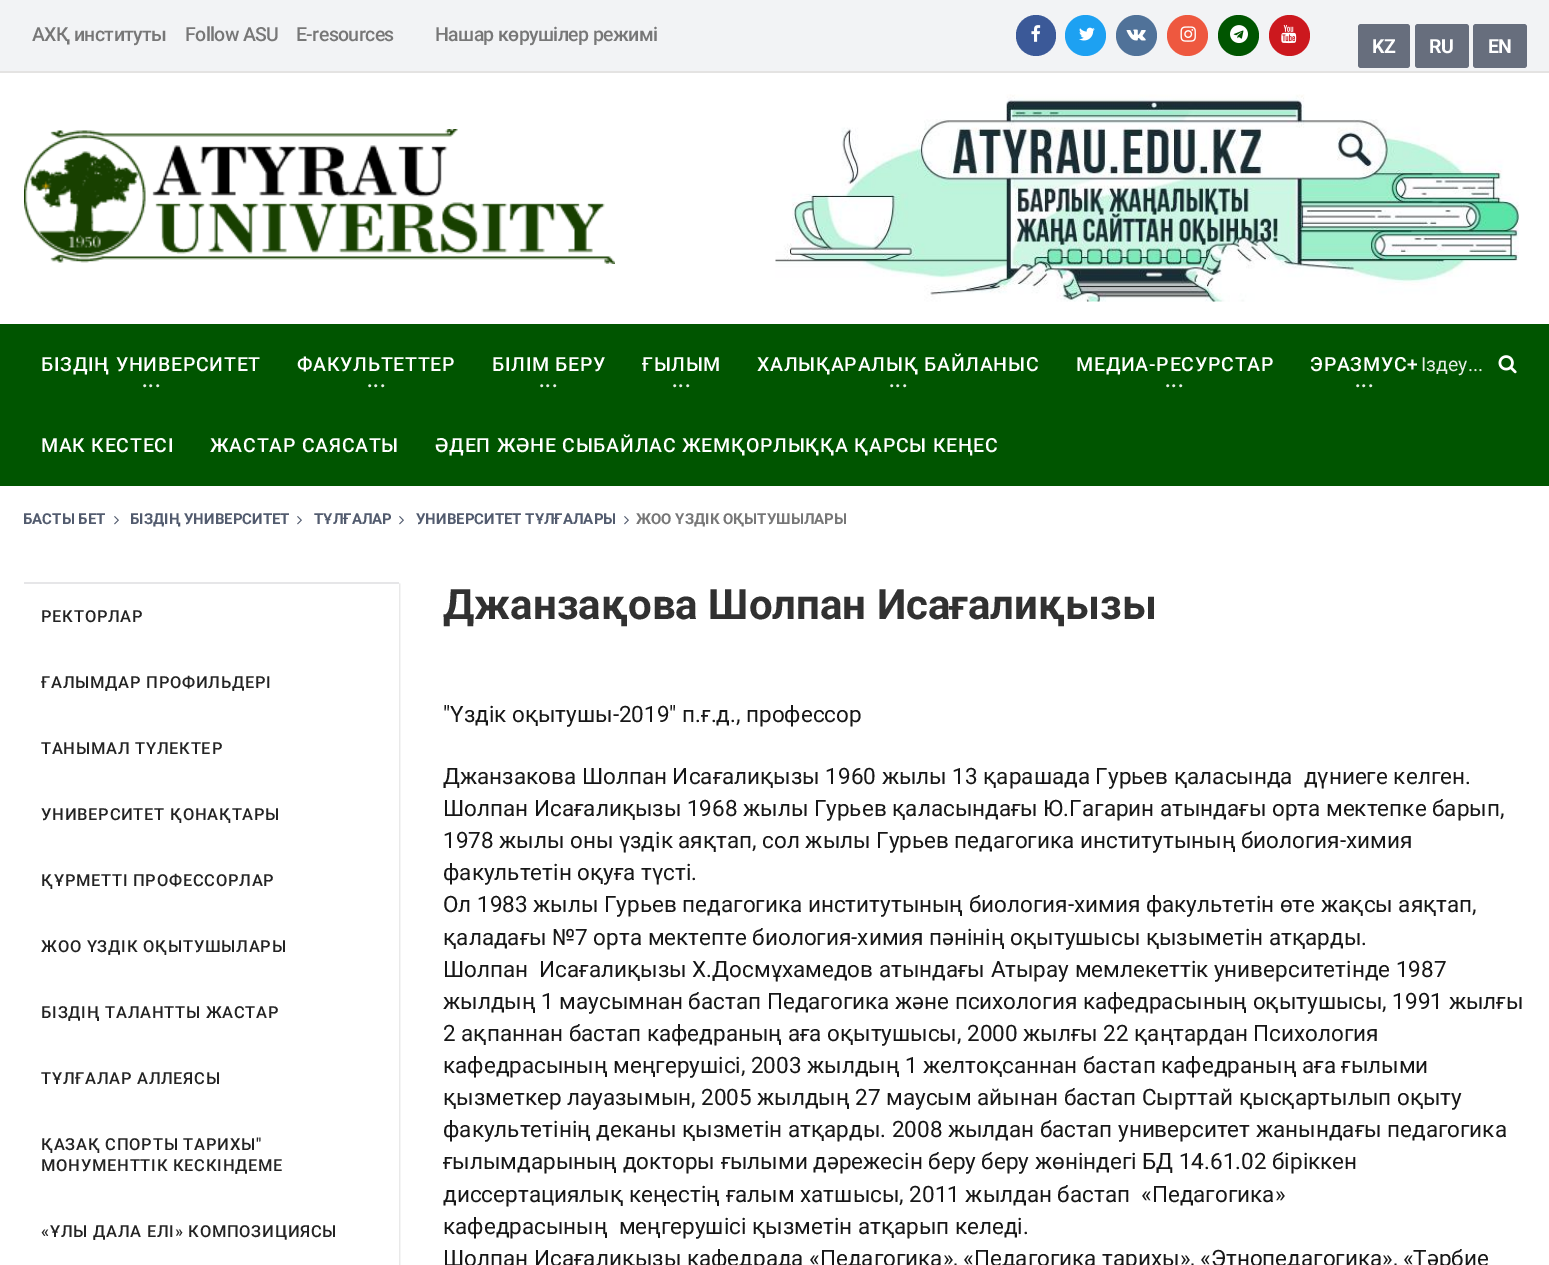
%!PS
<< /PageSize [1549 1265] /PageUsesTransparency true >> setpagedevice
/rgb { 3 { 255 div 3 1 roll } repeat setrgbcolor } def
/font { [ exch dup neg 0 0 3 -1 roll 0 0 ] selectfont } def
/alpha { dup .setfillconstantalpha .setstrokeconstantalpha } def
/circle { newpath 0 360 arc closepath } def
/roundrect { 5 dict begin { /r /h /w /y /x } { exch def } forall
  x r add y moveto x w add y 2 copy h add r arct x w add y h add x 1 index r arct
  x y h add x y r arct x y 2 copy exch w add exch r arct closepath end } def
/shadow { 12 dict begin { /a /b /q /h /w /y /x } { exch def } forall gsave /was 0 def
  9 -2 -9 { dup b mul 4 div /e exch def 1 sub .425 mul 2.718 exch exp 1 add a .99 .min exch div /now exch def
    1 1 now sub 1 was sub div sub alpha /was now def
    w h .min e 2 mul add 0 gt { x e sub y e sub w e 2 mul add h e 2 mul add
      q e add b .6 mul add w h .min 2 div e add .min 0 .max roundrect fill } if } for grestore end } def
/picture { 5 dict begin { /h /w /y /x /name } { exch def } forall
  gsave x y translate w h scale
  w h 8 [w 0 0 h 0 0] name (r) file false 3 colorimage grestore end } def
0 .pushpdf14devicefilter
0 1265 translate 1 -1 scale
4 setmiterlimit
255 255 255 rgb
0 0 1549 1265 rectfill
242 243 245 rgb
0 0 1549 71 rectfill
228 227 226 rgb
0 71 1549 2 rectfill
59 89 152 rgb
1016 15 40 41 20 roundrect fill
(img/1.rgb) 1031 25 10 17 picture
29 161 242 rgb
1085.5 35.5 20.5 circle fill
(img/2.rgb) 1079 27 16 14 picture
80 114 153 rgb
1136.5 35.5 20.5 circle fill
(img/3.rgb) 1126 29 20 12 picture
238 88 63 rgb
1187.5 35.5 20.5 circle fill
(img/4.rgb) 1180 26 16 16 picture
0 85 0 rgb
1238.5 35.5 20.5 circle fill
(img/5.rgb) 1230 25 18 19 picture
204 24 30 rgb
1289.5 35.5 20.5 circle fill
(img/6.rgb) 1281 25 16 19 picture
103 110 125 rgb
1358 24 52 44 3 roundrect fill
1415 24 54 44 3 roundrect fill
1473 24 54 44 3 roundrect fill
(img/7.rgb) 24 129 591 135 picture
(img/8.rgb) 775 94 745 208 picture
0 85 0 rgb
0 324 1549 162 rectfill
(img/9.rgb) 1498 355 19 19 picture
(img/10.rgb) 114 516 5 9 picture
(img/10.rgb) 297 516 5 9 picture
(img/10.rgb) 399 516 5 9 picture
(img/10.rgb) 624 516 5 9 picture
gsave
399 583 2 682 rectclip
0 0 0 rgb
24 584 375 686 0 1.5 0.2 shadow
grestore
230 230 232 rgb
24 582 375 2 rectfill
/Roboto-Medium 19.5 font
119 119 119 rgb
32 41 moveto -0.6 0 (АХҚ институты) ashow
185 41 moveto -0.6 0 (Follow ASU) ashow
296 41 moveto -0.6 0 (E-resources) ashow
435 41 moveto -0.6 0 (Нашар көрушілер режимі) ashow
/Roboto-Bold 19.5 font
255 255 255 rgb
1372 53 moveto -0.6 0 (KZ) ashow
1429 53 moveto -0.6 0 (RU) ashow
1488 53 moveto -0.6 0 (EN) ashow
/Roboto-Medium 19.5 font
41 371 moveto 0.75 0 (БІЗДІҢ УНИВЕРСИТЕТ) ashow
/Roboto-Bold 19.5 font
230 238 230 rgb
142 387 moveto 0.75 0 (...) ashow
/Roboto-Medium 19.5 font
255 255 255 rgb
297 371 moveto 0.75 0 (ФАКУЛЬТЕТТЕР) ashow
/Roboto-Bold 19.5 font
230 238 230 rgb
367 387 moveto 0.75 0 (...) ashow
/Roboto-Medium 19.5 font
255 255 255 rgb
492 371 moveto 0.75 0 (БІЛІМ БЕРУ) ashow
/Roboto-Bold 19.5 font
230 238 230 rgb
539 387 moveto 0.75 0 (...) ashow
/Roboto-Medium 19.5 font
255 255 255 rgb
642 371 moveto 0.75 0 (ҒЫЛЫМ) ashow
/Roboto-Bold 19.5 font
230 238 230 rgb
672 387 moveto 0.75 0 (...) ashow
/Roboto-Medium 19.5 font
255 255 255 rgb
757 371 moveto 0.75 0 (ХАЛЫҚАРАЛЫҚ БАЙЛАНЫС) ashow
/Roboto-Bold 19.5 font
230 238 230 rgb
889 387 moveto 0.75 0 (...) ashow
/Roboto-Medium 19.5 font
255 255 255 rgb
1076 371 moveto 0.75 0 (МЕДИА-РЕСУРСТАР) ashow
/Roboto-Bold 19.5 font
230 238 230 rgb
1165 387 moveto 0.75 0 (...) ashow
/Roboto-Medium 19.5 font
255 255 255 rgb
1310 371 moveto 0.75 0 (ЭРАЗМУС+) ashow
/Roboto-Bold 19.5 font
230 238 230 rgb
1355 387 moveto 0.75 0 (...) ashow
/Roboto-Medium 19.5 font
255 255 255 rgb
41 452 moveto 0.75 0 (МАК КЕСТЕСІ) ashow
210 452 moveto 0.75 0 (ЖАСТАР САЯСАТЫ) ashow
435 452 moveto 0.75 0 (ӘДЕП ЖӘНЕ СЫБАЙЛАС ЖЕМҚОРЛЫҚҚА ҚАРСЫ КЕҢЕС) ashow
/Roboto-Regular 19.5 font
230 238 230 rgb
1421 371 moveto (Іздеу...) show
/Roboto-Bold 15 font
82 91 110 rgb
[
  [(БАСТЫ БЕТ) 23 524]
  [(БІЗДІҢ УНИВЕРСИТЕТ) 130 524]
  [(ТҰЛҒАЛАР) 314 524]
  [(УНИВЕРСИТЕТ ТҰЛҒАЛАРЫ) 416 524]
] { aload pop moveto show } forall
119 119 119 rgb
636 524 moveto (ЖОО ҮЗДІК ОҚЫТУШЫЛАРЫ) show
/Roboto-Medium 16.5 font
35 35 35 rgb
41 622 moveto 0.75 0 (РЕКТОРЛАР) ashow
41 688 moveto 0.75 0 (ҒАЛЫМДАР ПРОФИЛЬДЕРІ) ashow
41 754 moveto 0.75 0 (ТАНЫМАЛ ТҮЛЕКТЕР) ashow
41 820 moveto 0.75 0 (УНИВЕРСИТЕТ ҚОНАҚТАРЫ) ashow
41 886 moveto 0.75 0 (ҚҰРМЕТТІ ПРОФЕССОРЛАР) ashow
41 952 moveto 0.75 0 (ЖОО ҮЗДІК ОҚЫТУШЫЛАРЫ) ashow
41 1018 moveto 0.75 0 (БІЗДІҢ ТАЛАНТТЫ ЖАСТАР) ashow
41 1084 moveto 0.75 0 (ТҰЛҒАЛАР АЛЛЕЯСЫ) ashow
41 1150 moveto 0.75 0 (ҚАЗАҚ СПОРТЫ ТАРИХЫ") ashow
41 1171 moveto 0.75 0 (МОНУМЕНТТІК КЕСКІНДЕМЕ) ashow
41 1237 moveto 0.75 0 («ҰЛЫ ДАЛА ЕЛІ» КОМПОЗИЦИЯСЫ) ashow
/Roboto-Bold 42 font
49 49 49 rgb
443 619 moveto (Джанзақова Шолпан Исағалиқызы) show
/Roboto-Regular 22.5 font
23 23 23 rgb
[
  [("Үздік оқытушы-2019" п.ғ.д., профессор) 443 722]
  [(Джанзакова Шолпан Исағалиқызы 1960 жылы 13 қарашада Гурьев қаласында  дүниеге келген.) 443 784]
  [(Шолпан Исағалиқызы 1968 жылы Гурьев қаласындағы Ю.Гагарин атындағы орта мектепке барып,) 443 816]
  [(1978 жылы оны үздік аяқтап, сол жылы Гурьев педагогика институтының биология-химия) 443 848]
  [(факультетін оқуға түсті.) 443 880]
  [(Ол 1983 жылы Гурьев педагогика институтының биология-химия факультетін өте жақсы аяқтап,) 443 912]
  [(қаладағы №7 орта мектепте биология-химия пәнінің оқытушысы қызыметін атқарды.) 443 945]
  [(Шолпан  Исағалиқызы Х.Досмұхамедов атындағы Атырау мемлекеттік университетінде 1987) 443 977]
  [(жылдың 1 маусымнан бастап Педагогика және психология кафедрасының оқытушысы, 1991 жылғы) 443 1009]
  [(2 ақпаннан бастап кафедраның аға оқытушысы, 2000 жылғы 22 қаңтардан Психология) 443 1041]
  [(кафедрасының меңгерушісі, 2003 жылдың 1 желтоқсаннан бастап кафедраның аға ғылыми) 443 1073]
  [(қызметкер лауазымын, 2005 жылдың 27 маусым айынан бастап Сырттай қысқартылып оқыту) 443 1105]
  [(факультетінің деканы қызметін атқарды. 2008 жылдан бастап университет жанындағы педагогика) 443 1137]
  [(ғылымдарының докторы ғылыми дәрежесін беру беру жөніндегі БД 14.61.02 біріккен) 443 1169]
  [(диссертациялық кеңестің ғалым хатшысы, 2011 жылдан бастап  «Педагогика») 443 1202]
  [(кафедрасының  меңгерушісі қызметін атқарып келеді.) 443 1234]
  [(Шолпан Исағалиқызы кафедрада «Педагогика», «Педагогика тарихы», «Этнопедагогика», «Тәрбие) 443 1266]
] { aload pop moveto show } forall
.poppdf14devicefilter showpage
